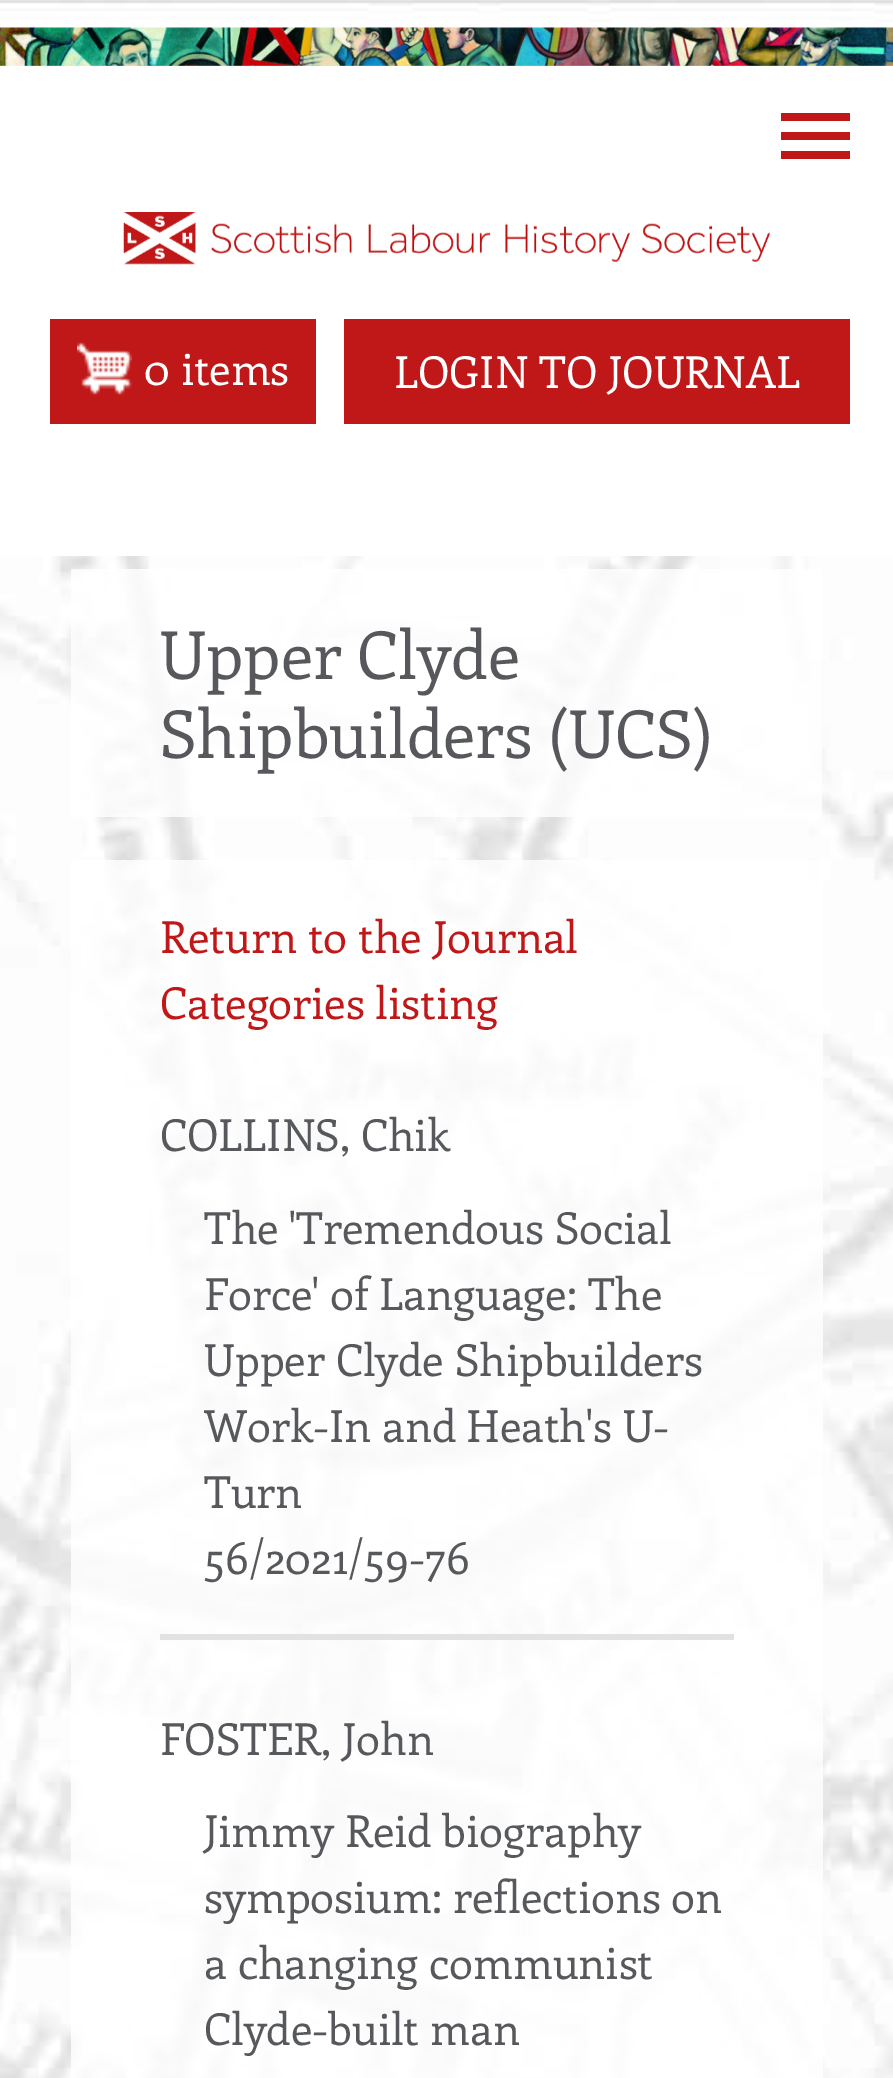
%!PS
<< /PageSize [893 2078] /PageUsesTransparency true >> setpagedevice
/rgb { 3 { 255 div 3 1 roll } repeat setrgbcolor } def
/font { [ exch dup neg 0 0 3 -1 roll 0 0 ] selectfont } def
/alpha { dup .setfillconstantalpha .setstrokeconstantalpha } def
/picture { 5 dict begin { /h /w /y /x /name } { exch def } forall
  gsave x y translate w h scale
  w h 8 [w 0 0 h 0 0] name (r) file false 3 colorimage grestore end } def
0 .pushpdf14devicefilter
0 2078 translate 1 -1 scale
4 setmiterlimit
255 255 255 rgb
0 0 893 2078 rectfill
(img/1.rgb) 0 0 893 2078 picture
(img/2.rgb) 0 27 893 39 picture
[
  [0 66 893 490 255 255 255]
  [781 113 69 8 192 24 24]
  [781 132 69 8 192 24 24]
  [781 151 69 8 192 24 24]
] { aload pop rgb rectfill } forall
(img/3.rgb) 123 212 647 53 picture
50 319 266 105 rectfill
(img/4.rgb) 77 342 55 53 picture
[
  [344 319 506 105 192 24 24]
] { aload pop rgb rectfill } forall
0.8 alpha
[
  [71 569 751 248 255 255 255]
  [71 860 752 1218 255 255 255]
] { aload pop rgb rectfill } forall
1 alpha
[
  [160 1634 574 6 226 226 226]
] { aload pop rgb rectfill } forall
/Enriqueta-Regular 44 font
255 255 255 rgb
144 385 moveto (0 items) show
394 388 moveto (LOGIN TO JOURNAL) show
/Enriqueta-Regular 66 font
86 88 91 rgb
160 679 moveto (Upper Clyde) show
160 758 moveto (Shipbuilders \(UCS\)) show
/Enriqueta-Regular 44 font
192 24 24 rgb
160 953 moveto (Return to the Journal) show
160 1019 moveto (Categories listing) show
86 88 91 rgb
[
  [(COLLINS, Chik) 160 1151]
  [(The 'Tremendous Social) 204 1244]
  [(Force' of Language: The) 204 1310]
  [(Upper Clyde Shipbuilders) 204 1376]
  [(Work-In and Heath's U-) 204 1442]
  [(Turn) 204 1508]
  [(56/2021/59-76) 204 1574]
  [(FOSTER, John) 160 1755]
  [(Jimmy Reid biography) 204 1847]
  [(symposium: reflections on) 204 1913]
  [(a changing communist) 204 1979]
  [(Clyde-built man) 204 2045]
] { aload pop moveto show } forall
.poppdf14devicefilter showpage
